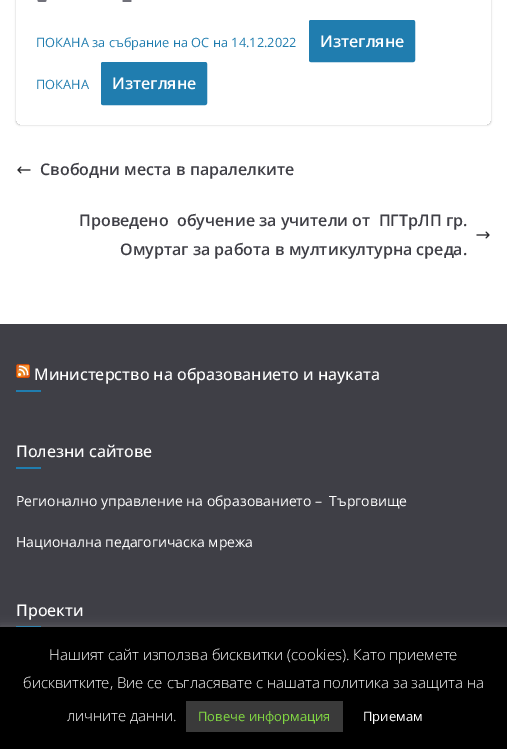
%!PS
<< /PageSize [507 749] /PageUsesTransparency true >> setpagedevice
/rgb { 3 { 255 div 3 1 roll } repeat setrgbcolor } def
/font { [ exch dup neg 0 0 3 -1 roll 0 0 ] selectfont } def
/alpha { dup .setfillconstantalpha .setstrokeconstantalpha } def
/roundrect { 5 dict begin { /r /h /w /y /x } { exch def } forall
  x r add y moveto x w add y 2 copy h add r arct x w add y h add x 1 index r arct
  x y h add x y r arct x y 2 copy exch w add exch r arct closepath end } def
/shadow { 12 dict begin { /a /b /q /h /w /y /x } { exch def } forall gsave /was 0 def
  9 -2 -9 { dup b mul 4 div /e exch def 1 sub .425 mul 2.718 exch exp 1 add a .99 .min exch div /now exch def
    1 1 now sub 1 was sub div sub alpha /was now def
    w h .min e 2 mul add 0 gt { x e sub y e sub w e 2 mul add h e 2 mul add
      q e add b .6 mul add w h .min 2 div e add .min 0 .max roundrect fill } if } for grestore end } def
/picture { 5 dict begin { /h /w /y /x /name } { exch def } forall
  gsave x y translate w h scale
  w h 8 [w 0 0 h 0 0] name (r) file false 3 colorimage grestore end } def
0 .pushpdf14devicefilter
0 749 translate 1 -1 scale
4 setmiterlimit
255 255 255 rgb
0 0 507 749 rectfill
gsave
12 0 moveto 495 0 lineto 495 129 lineto 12 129 lineto closepath 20 -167 moveto 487 -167 lineto 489 -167 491 -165 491 -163 curveto 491 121 lineto 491 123 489 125 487 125 curveto 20 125 lineto 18 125 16 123 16 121 curveto 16 -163 lineto 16 -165 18 -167 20 -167 curveto closepath eoclip newpath
0 0 0 rgb
16 -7 475 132 4 1 0.24 shadow
grestore
(img/1.rgb) 37 0 10 2 picture
(img/2.rgb) 122 0 10 2 picture
32 125 175 rgb
309.5 20.5 105 41 1.5 roundrect gsave fill grestore
stroke
101.5 62.5 105 42 1.5 roundrect gsave fill grestore
stroke
(img/3.rgb) 17 166 14 8 picture
(img/4.rgb) 476 231 14 8 picture
63 63 70 rgb
0 324 507 303 rectfill
(img/5.rgb) 16 364 14 14 picture
[
  [16 390 25 2 32 125 175]
  [16 467 25 2 32 125 175]
  [16 626 25 1 32 125 175]
] { aload pop rgb rectfill } forall
172 171 171 rgb
0 626 507 122 0 5 0.3 shadow
0 0 0 rgb
0 627 507 122 rectfill
58 58 58 rgb
186 701 157 31 rectfill
/OpenSans-Regular 12.8 font
32 125 175 rgb
36 47 moveto (ПОКАНА за събрание на ОС на 14.12.2022) show
/OpenSans-SemiBold 16 font
255 255 255 rgb
320 47 moveto (Изтегляне) show
/OpenSans-Regular 12.8 font
32 125 175 rgb
36 89 moveto (ПОКАНА) show
/OpenSans-SemiBold 16 font
255 255 255 rgb
112 89 moveto (Изтегляне) show
63 63 70 rgb
[
  [(Свободни места в паралелките) 40 175]
  [(Проведено  обучение за учители от  ПГТрЛП гр.) 79 226]
  [(Омуртаг за работа в мултикултурна среда.) 120 255]
] { aload pop moveto show } forall
/OpenSans-Medium 16 font
255 255 255 rgb
34 380 moveto (Министерство на образованието и науката) show
16 457 moveto (Полезни сайтове) show
/OpenSans-Regular 14 font
16 506 moveto (Регионално управление на образованието –  Търговище) show
16 547 moveto (Национална педагогичаска мрежа) show
/OpenSans-Medium 16 font
16 616 moveto (Проекти) show
/OpenSans-Light 15 font
[
  [(Нашият сайт използва бисквитки \(cookies\). Като приемете) 49 660]
  [(бисквитките, Вие се съгласявате с нашата политика за защита на) 23 688]
  [(личните данни.) 67 721]
] { aload pop moveto show } forall
/OpenSans-Regular 13 font
129 215 66 rgb
198 721 moveto (Повече информация) show
255 255 255 rgb
363 721 moveto (Приемам) show
.poppdf14devicefilter showpage
